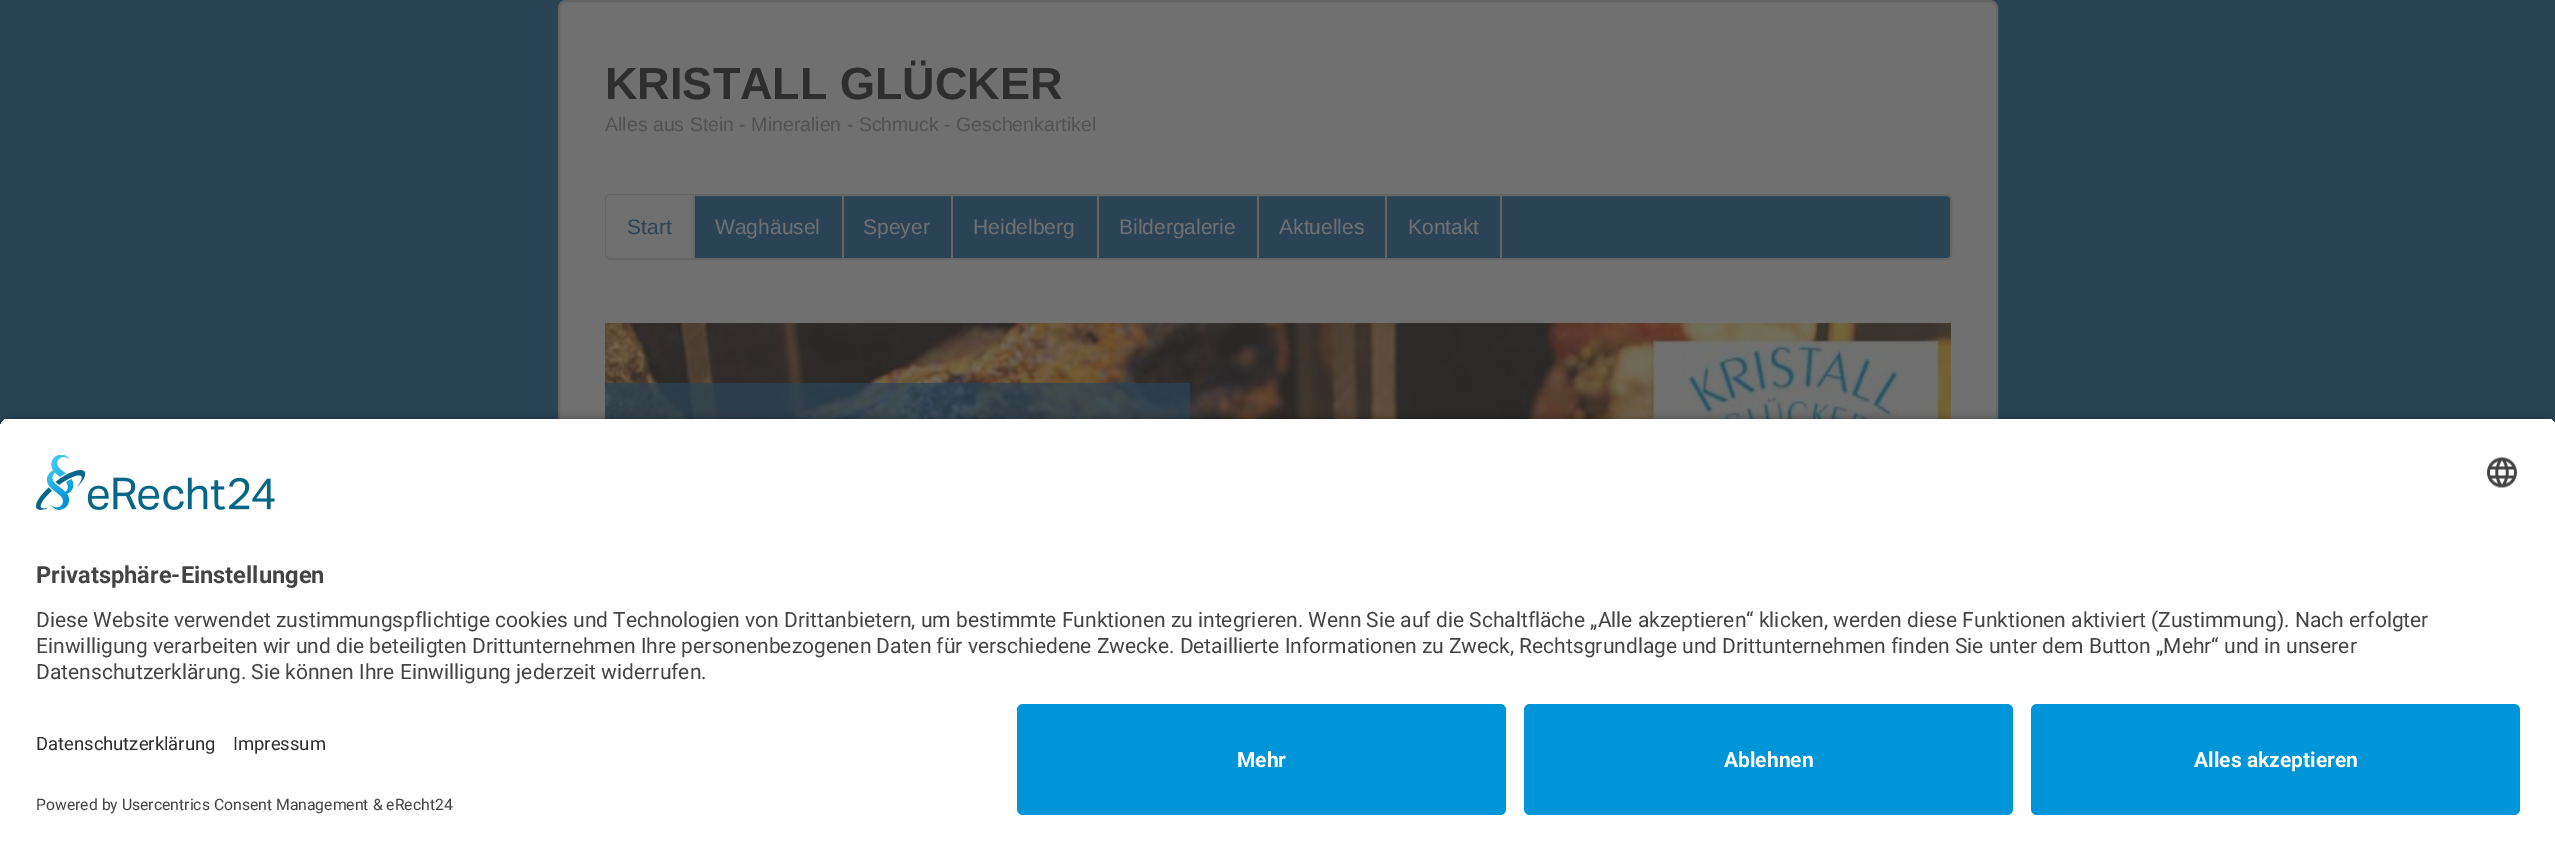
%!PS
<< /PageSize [2555 850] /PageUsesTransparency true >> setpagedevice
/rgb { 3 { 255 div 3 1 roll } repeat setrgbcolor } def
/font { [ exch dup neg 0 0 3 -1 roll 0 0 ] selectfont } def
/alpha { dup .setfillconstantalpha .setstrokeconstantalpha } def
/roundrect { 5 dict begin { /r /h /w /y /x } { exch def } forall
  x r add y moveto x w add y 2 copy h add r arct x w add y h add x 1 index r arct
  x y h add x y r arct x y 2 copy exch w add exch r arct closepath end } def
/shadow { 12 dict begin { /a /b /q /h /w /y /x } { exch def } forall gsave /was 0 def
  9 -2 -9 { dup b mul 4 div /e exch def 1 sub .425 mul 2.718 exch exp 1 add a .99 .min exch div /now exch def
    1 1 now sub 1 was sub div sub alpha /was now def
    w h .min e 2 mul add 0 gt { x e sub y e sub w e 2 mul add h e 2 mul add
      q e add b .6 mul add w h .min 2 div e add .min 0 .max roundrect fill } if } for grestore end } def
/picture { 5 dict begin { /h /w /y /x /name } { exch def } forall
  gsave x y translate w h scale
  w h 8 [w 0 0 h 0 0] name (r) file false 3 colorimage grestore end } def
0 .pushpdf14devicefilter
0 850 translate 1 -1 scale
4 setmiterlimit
42 68 86 rgb
0 0 2555 850 rectfill
112 112 112 rgb
559 1 1438 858 7 roundrect gsave fill grestore
101 101 101 rgb
2 setlinewidth
stroke
42 68 86 rgb
606 195 1345 64 4 roundrect gsave fill grestore
101 101 101 rgb
stroke
693 195 2 63 rectfill
112 112 112 rgb
611 195 moveto 693 195 lineto 693 258 lineto 611 258 lineto 608 258 606 256 606 253 curveto 606 200 lineto 606 197 608 195 611 195 curveto closepath fill
[
  [842 195 2 63 101 101 101]
  [951 195 2 63 101 101 101]
  [1097 195 2 63 101 101 101]
  [1257 195 2 63 101 101 101]
  [1385 195 2 63 101 101 101]
  [1500 195 2 63 101 101 101]
] { aload pop rgb rectfill } forall
(img/1.rgb) 605 323 1346 96 picture
0.7 alpha
42 68 86 rgb
605 383 585 36 rectfill
1 alpha
0 0 0 rgb
0 422 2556 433 12 5 0.8 shadow
gsave
12 417 moveto 2544 417 lineto 2550.5 417 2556 422.5 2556 429 curveto 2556 692 lineto 0 692 lineto 0 429 lineto 0 422.5 5.5 417 12 417 curveto closepath clip newpath
255 255 255 rgb
0 419 2555 273 rectfill
grestore
(img/2.rgb) 36 455 239 55 picture
(img/3.rgb) 2487 457 30 31 picture
255 255 255 rgb
0 692 2555 158 rectfill
0 148 216 rgb
1017 704 489 111 6 roundrect fill
1524 704 489 111 6 roundrect fill
2031 704 489 111 6 roundrect fill
/LiberationSans-Bold 45 font
46 46 46 rgb
605 99 moveto (KRISTALL GLÜCKER) show
/LiberationSans-Regular 19.5 font
82 82 82 rgb
605 131 moveto (Alles aus Stein - Mineralien - Schmuck - Geschenkartikel) show
/LiberationSans-Regular 21 font
42 68 86 rgb
627 234 moveto (Start) show
112 112 112 rgb
[
  [(Waghäusel) 715 234]
  [(Speyer) 863 234]
  [(Heidelberg) 973 234]
  [(Bildergalerie) 1119 234]
  [(Aktuelles) 1279 234]
  [(Kontakt) 1408 234]
] { aload pop moveto show } forall
/Roboto-Bold 23.6 font
68 68 68 rgb
36 583 moveto (Privatsphäre-Einstellungen) show
/Roboto-Regular 21 font
[
  [(Diese Website verwendet zustimmungspflichtige cookies und Technologien von Drittanbietern, um bestimmte Funktionen zu integrieren. Wenn Sie auf die Schaltfläche „Alle akzeptieren“ klicken, werden diese Funktionen aktiviert \(Zustimmung\). Nach erfolgter) 36 627]
  [(Einwilligung verarbeiten wir und die beteiligten Drittunternehmen Ihre personenbezogenen Daten für verschiedene Zwecke. Detaillierte Informationen zu Zweck, Rechtsgrundlage und Drittunternehmen finden Sie unter dem Button „Mehr“ und in unserer) 36 653]
  [(Datenschutzerklärung. Sie können Ihre Einwilligung jederzeit widerrufen.) 36 679]
] { aload pop moveto show } forall
/Roboto-Regular 18.4 font
46 46 46 rgb
36 750 moveto (Datenschutzerklärung) show
233 750 moveto (Impressum) show
/Roboto-Regular 15.75 font
68 68 68 rgb
36 810 moveto (Powered by Usercentrics Consent Management & eRecht24) show
/Roboto-Bold 21 font
255 255 255 rgb
[
  [(Mehr) 1237 767]
  [(Ablehnen) 1724 767]
  [(Alles akzeptieren) 2194 767]
] { aload pop moveto show } forall
.poppdf14devicefilter showpage
